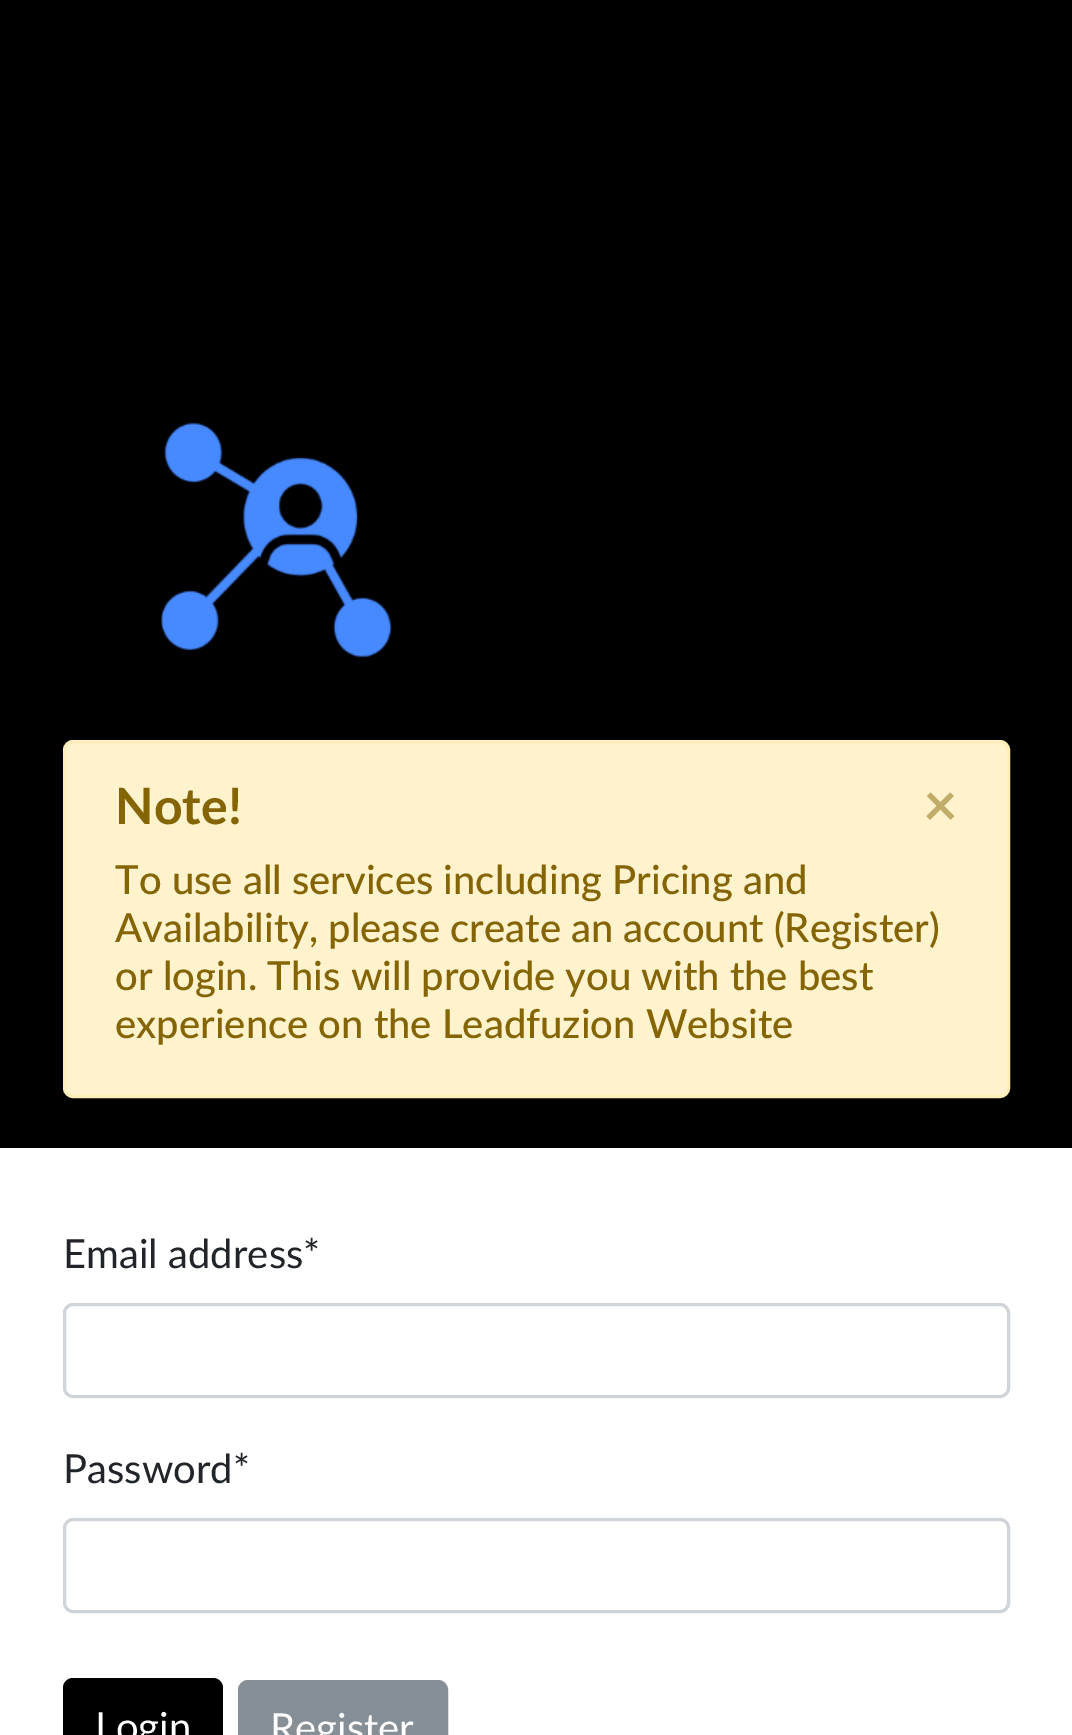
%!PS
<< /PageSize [1072 1735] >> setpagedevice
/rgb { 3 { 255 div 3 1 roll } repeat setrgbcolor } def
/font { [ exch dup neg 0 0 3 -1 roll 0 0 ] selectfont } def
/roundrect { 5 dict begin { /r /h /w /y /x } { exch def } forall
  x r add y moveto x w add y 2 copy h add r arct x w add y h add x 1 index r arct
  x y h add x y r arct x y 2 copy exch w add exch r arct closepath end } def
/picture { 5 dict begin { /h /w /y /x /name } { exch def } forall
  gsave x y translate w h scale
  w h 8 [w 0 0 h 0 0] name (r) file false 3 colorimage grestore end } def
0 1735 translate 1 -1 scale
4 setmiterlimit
255 255 255 rgb
0 0 1072 1735 rectfill
0 0 0 rgb
0 0 1072 1148 rectfill
(img/1.rgb) 161 422 231 236 picture
255 243 205 rgb
64.5 741.5 944 355 8.5 roundrect gsave fill grestore
255 238 186 rgb
3 setlinewidth
stroke
206 212 218 rgb
64.5 1304.5 944 92 8.5 roundrect stroke
64.5 1519.5 944 92 8.5 roundrect stroke
0 0 0 rgb
63 1678 160 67 10 roundrect fill
134 142 150 rgb
239.5 1681.5 207 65 8.5 roundrect gsave fill grestore
stroke
/Lato-Bold 50 font
133 100 4 rgb
115 824 moveto (Note!) show
/Lato-Bold 60 font
194 172 105 rgb
923 826 moveto (×) show
/Lato-Medium 40 font
133 100 4 rgb
[
  [(To use all services including Pricing and) 115 894]
  [(Availability, please create an account \(Register\)) 115 942]
  [(or login. This will provide you with the best) 115 990]
  [(experience on the Leadfuzion Website) 115 1038]
] { aload pop moveto show } forall
/Lato-Regular 40 font
33 37 41 rgb
63 1268 moveto (Email address*) show
63 1483 moveto (Password*) show
255 255 255 rgb
95 1741 moveto (Login) show
270 1742 moveto (Register) show
showpage
